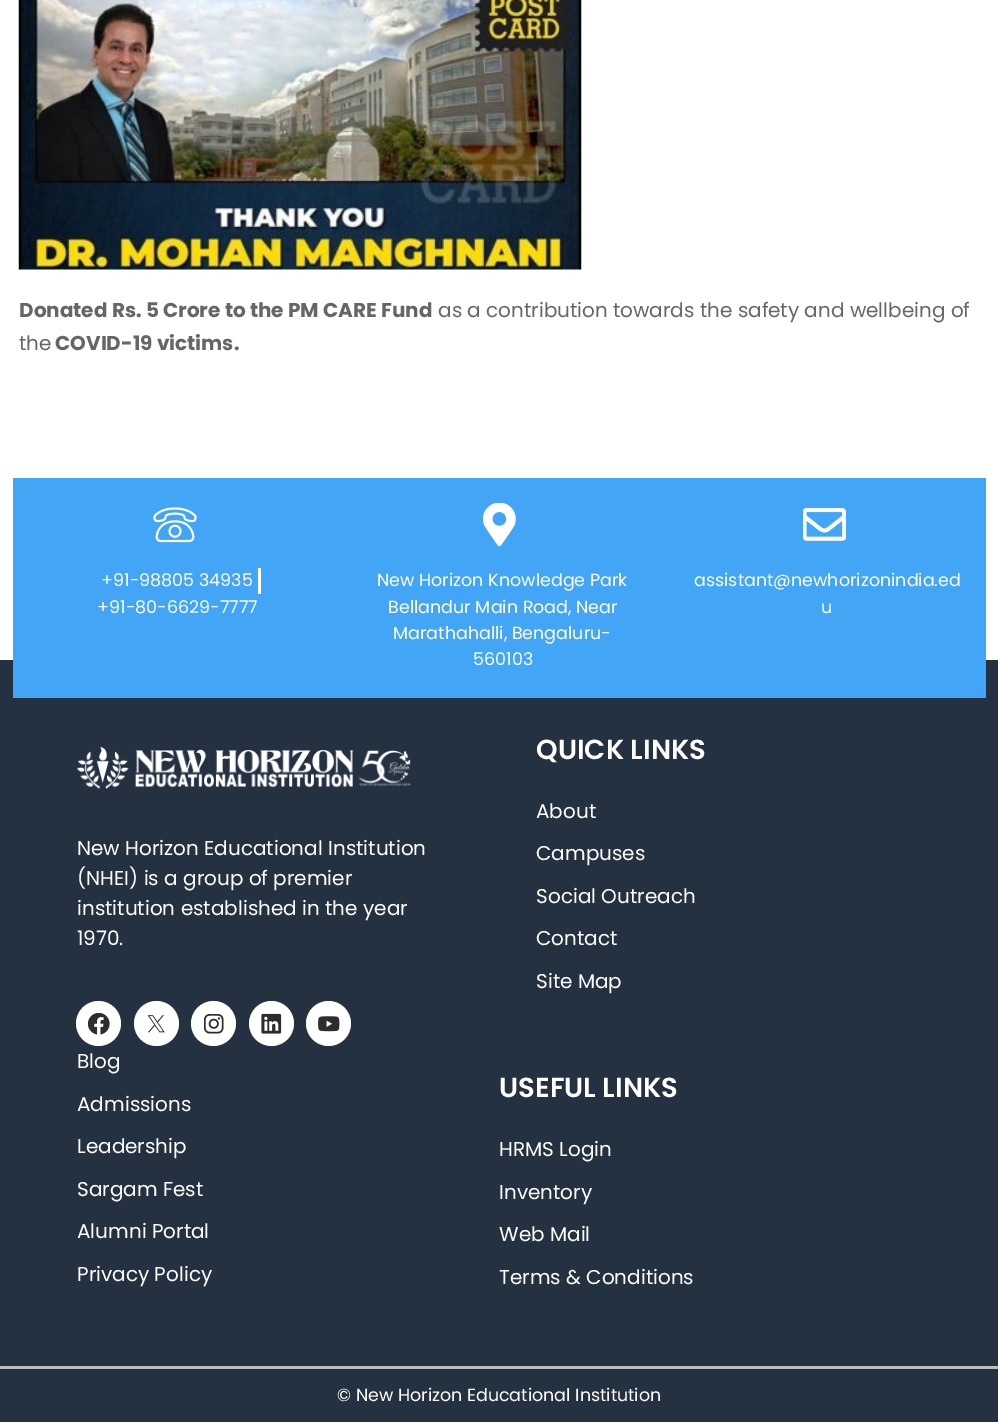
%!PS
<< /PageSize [998 1422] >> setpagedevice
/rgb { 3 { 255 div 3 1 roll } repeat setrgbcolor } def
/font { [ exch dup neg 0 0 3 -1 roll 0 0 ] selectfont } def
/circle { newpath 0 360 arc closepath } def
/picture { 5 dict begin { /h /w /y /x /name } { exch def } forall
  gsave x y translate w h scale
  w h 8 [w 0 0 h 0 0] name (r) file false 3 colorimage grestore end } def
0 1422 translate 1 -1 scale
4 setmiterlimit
255 255 255 rgb
0 0 998 1422 rectfill
(img/1.rgb) 18 0 564 270 picture
36 49 65 rgb
0 660 998 706 rectfill
66 165 246 rgb
13 478 973 220 rectfill
(img/2.rgb) 153 507 44 36 picture
255 255 255 rgb
258 568 3 26 rectfill
(img/3.rgb) 483 503 33 43 picture
(img/4.rgb) 803 508 43 33 picture
(img/5.rgb) 76 747 335 42 picture
98.5 1023.5 22.5 circle fill
(img/6.rgb) 88 1013 22 22 picture
156.5 1023.5 22.5 circle fill
(img/7.rgb) 147 1015 18 18 picture
213.5 1023.5 22.5 circle fill
(img/8.rgb) 203 1014 21 20 picture
271.5 1023.5 22.5 circle fill
(img/9.rgb) 261 1013 21 21 picture
328.5 1023.5 22.5 circle fill
(img/10.rgb) 318 1016 22 16 picture
36 49 65 rgb
0 1369 998 53 rectfill
188 188 188 rgb
0 1366 998 3 rectfill
/Poppins-Bold 20 font
102 102 102 rgb
19 317 moveto (Donated Rs. 5 Crore to the PM CARE Fund) show
/Poppins-Regular 20 font
438 317 moveto (as a contribution towards the safety and wellbeing of) show
19 350 moveto (the) show
/Poppins-Bold 20 font
55 350 moveto (COVID-19 victims.) show
/Poppins-Regular 17.5 font
255 255 255 rgb
[
  [(+91-98805 34935) 101 586]
  [(+91-80-6629-7777) 97 613]
  [(New Horizon Knowledge Park) 377 586]
  [(Bellandur Main Road, Near) 388 613]
  [(Marathahalli, Bengaluru-) 393 639]
  [(560103) 473 665]
  [(assistant@newhorizonindia.ed) 694 586]
  [(u) 821 613]
] { aload pop moveto show } forall
/Poppins-Regular 20 font
[
  [(New Horizon Educational Institution) 77 855]
  [(\(NHEI\) is a group of premier) 77 885]
  [(institution established in the year) 77 915]
  [(1970.) 77 945]
] { aload pop moveto show } forall
/Poppins-SemiBold 27.5 font
536 759 moveto (QUICK LINKS) show
/Poppins-Regular 20 font
[
  [(About) 536 818]
  [(Campuses) 536 860]
  [(Social Outreach) 536 903]
  [(Contact) 536 945]
  [(Site Map) 536 988]
  [(Blog) 77 1068]
  [(Admissions) 77 1111]
  [(Leadership) 77 1153]
  [(Sargam Fest) 77 1196]
  [(Alumni Portal) 77 1238]
  [(Privacy Policy) 77 1281]
] { aload pop moveto show } forall
/Poppins-SemiBold 27.5 font
499 1097 moveto (USEFUL LINKS) show
/Poppins-Regular 20 font
[
  [(HRMS Login) 499 1156]
  [(Inventory) 499 1199]
  [(Web Mail) 499 1241]
  [(Terms & Conditions) 499 1284]
] { aload pop moveto show } forall
/Poppins-Regular 17.5 font
337 1401 moveto (© New Horizon Educational Institution) show
showpage
